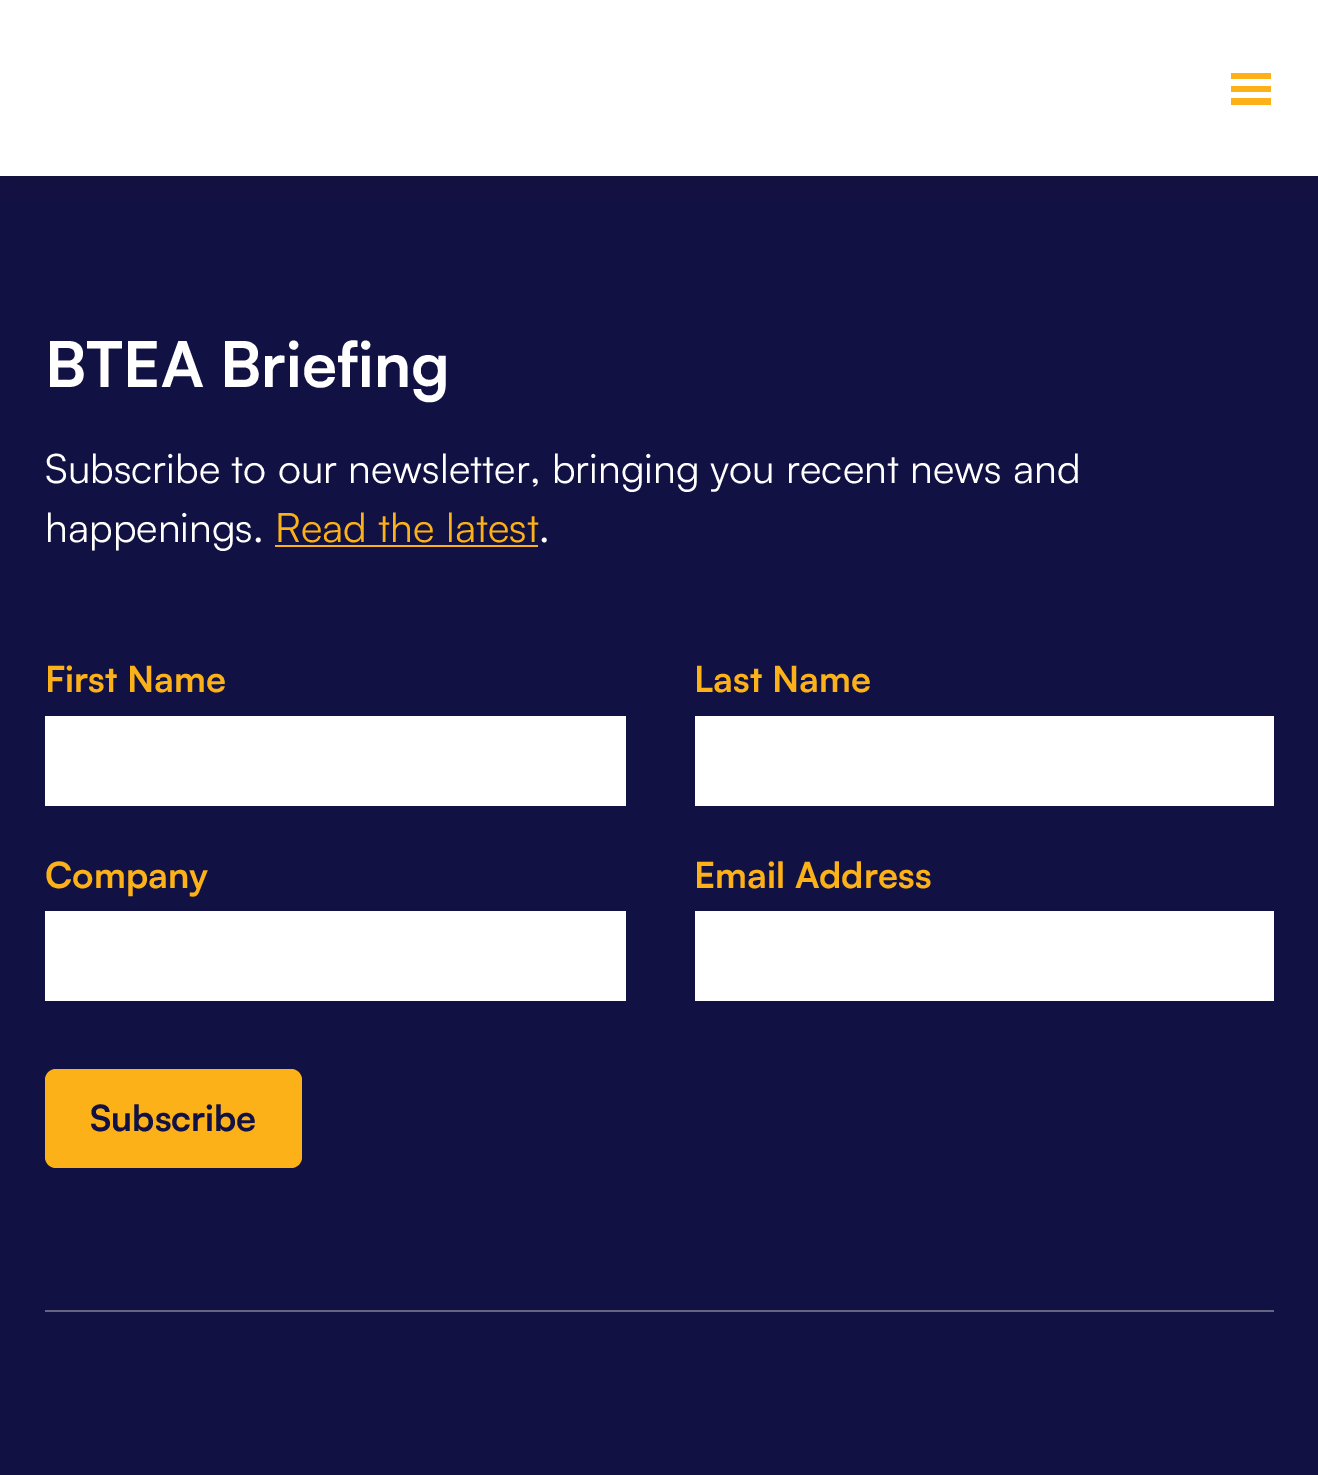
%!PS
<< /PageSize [1318 1475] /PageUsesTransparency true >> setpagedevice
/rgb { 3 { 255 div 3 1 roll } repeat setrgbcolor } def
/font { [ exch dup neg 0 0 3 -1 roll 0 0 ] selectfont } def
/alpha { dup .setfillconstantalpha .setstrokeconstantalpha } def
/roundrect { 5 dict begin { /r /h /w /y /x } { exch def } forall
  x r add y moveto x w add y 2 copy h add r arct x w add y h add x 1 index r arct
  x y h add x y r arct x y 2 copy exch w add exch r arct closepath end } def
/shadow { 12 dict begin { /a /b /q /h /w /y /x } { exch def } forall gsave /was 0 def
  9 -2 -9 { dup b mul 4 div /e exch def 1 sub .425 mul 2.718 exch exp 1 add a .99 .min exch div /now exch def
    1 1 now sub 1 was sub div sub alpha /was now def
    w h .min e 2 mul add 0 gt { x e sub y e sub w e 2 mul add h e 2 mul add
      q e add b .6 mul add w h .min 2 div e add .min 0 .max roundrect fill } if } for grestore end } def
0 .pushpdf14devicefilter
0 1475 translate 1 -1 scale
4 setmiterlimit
255 255 255 rgb
0 0 1318 1475 rectfill
18 17 67 rgb
0 176 1318 1299 rectfill
gsave
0 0 moveto 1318 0 lineto 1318 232 lineto 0 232 lineto closepath 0 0 moveto 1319 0 lineto 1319 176 lineto 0 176 lineto closepath eoclip newpath
0 0 0 rgb
0 5 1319 175 0 17 0.14 shadow
grestore
gsave
1231 72 40 34 rectclip
251 177 23 rgb
1231 73 moveto 1273 73 lineto 1273 79 lineto 1231 79 lineto closepath 1231 86 moveto 1273 86 lineto 1273 92 lineto 1231 92 lineto closepath 1231 98 moveto 1273 98 lineto 1273 105 lineto 1231 105 lineto closepath eofill
grestore
[
  [275 545 263 2 251 177 23]
  [45 1310 1229 2 101 100 133]
  [45 716 581 90 255 255 255]
  [695 716 579 90 255 255 255]
  [45 911 581 90 255 255 255]
  [695 911 579 90 255 255 255]
] { aload pop rgb rectfill } forall
251 177 23 rgb
45 1069 257 99 11 roundrect fill
/Satoshi-Bold 63 font
255 255 255 rgb
45 387 moveto (BTEA Briefing) show
/Satoshi-Regular 40.5 font
45 483 moveto (Subscribe to our newsletter, bringing you recent news and) show
45 542 moveto (happenings.) show
251 177 23 rgb
275 542 moveto (Read the latest) show
255 255 255 rgb
539 542 moveto (.) show
/Satoshi-Bold 36 font
251 177 23 rgb
[
  [(First Name) 45 692]
  [(Last Name) 694 692]
  [(Company) 45 888]
  [(Email Address) 694 888]
] { aload pop moveto show } forall
18 17 67 rgb
90 1131 moveto (Subscribe) show
.poppdf14devicefilter showpage
